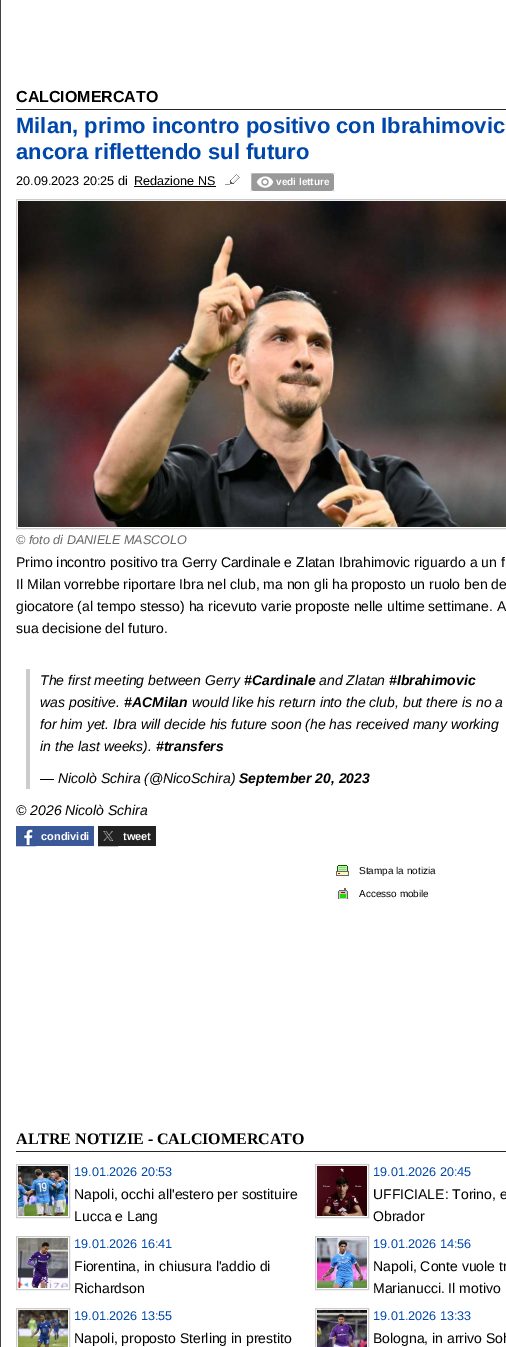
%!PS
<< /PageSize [506 1347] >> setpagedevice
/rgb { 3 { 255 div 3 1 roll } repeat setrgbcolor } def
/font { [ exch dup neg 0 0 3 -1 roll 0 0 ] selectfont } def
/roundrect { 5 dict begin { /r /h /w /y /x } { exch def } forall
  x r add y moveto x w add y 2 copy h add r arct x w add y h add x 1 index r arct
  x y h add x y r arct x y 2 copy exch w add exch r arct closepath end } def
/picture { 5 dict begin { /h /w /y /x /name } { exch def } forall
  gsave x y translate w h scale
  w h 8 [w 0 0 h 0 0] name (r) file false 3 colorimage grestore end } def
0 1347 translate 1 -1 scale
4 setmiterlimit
255 255 255 rgb
0 0 506 1347 rectfill
[
  [0 0 1 1347 68 68 68]
  [16 109 490 1 37 37 37]
  [134 186 82 1 0 0 0]
] { aload pop rgb rectfill } forall
(img/1.rgb) 225 174 15 11 picture
153 153 153 rgb
250 172 85 20 3 roundrect fill
(img/2.rgb) 256 176 18 12 picture
255 255 255 rgb
250.5 172.5 84 19 2.5 roundrect stroke
204 204 204 rgb
16.5 199.5 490 329 rectstroke
(img/3.rgb) 18 201 488 326 picture
26 669 4 120 rectfill
(img/4.rgb) 17 827 18 18 picture
59 89 152 rgb
16.5 826.5 19 19 rectstroke
36 826 58 20 rectfill
(img/5.rgb) 99 827 18 18 picture
34 34 34 rgb
98.5 826.5 19 19 rectstroke
118 826 38 20 rectfill
(img/6.rgb) 336 865 13 11 picture
(img/7.rgb) 338 888 10 11 picture
37 37 37 rgb
16 1151 490 1 rectfill
204 204 204 rgb
16.5 1164.5 53 53 rectstroke
(img/8.rgb) 18 1166 50 50 picture
315.5 1164.5 53 53 rectstroke
(img/9.rgb) 317 1166 50 50 picture
16.5 1236.5 53 53 rectstroke
(img/10.rgb) 18 1238 50 50 picture
315.5 1236.5 53 53 rectstroke
(img/11.rgb) 317 1238 50 50 picture
16.5 1308.5 53 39 rectstroke
(img/12.rgb) 18 1310 50 37 picture
315.5 1308.5 53 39 rectstroke
(img/13.rgb) 317 1310 50 37 picture
/LiberationSans-Bold 16 font
0 0 0 rgb
16 102 moveto (CALCIOMERCATO) show
/LiberationSans-Bold 22 font
0 71 171 rgb
16 133 moveto (Milan, primo incontro positivo con Ibrahimovic) show
16 159 moveto (ancora riflettendo sul futuro) show
/LiberationSans-Regular 12.6 font
0 0 0 rgb
16 185 moveto (20.09.2023 20:25 di) show
134 185 moveto (Redazione NS) show
/LiberationSans-Bold 10 font
255 255 255 rgb
276 185 moveto (vedi letture) show
/LiberationSans-Italic 12.6 font
102 102 102 rgb
16 544 moveto (© foto di DANIELE MASCOLO) show
/LiberationSans-Regular 14 font
0 0 0 rgb
[
  [(Primo incontro positivo tra Gerry Cardinale e Zlatan Ibrahimovic riguardo a un f) 16 567]
  [(Il Milan vorrebbe riportare Ibra nel club, ma non gli ha proposto un ruolo ben de) 16 589]
  [(giocatore \(al tempo stesso\) ha ricevuto varie proposte nelle ultime settimane. A) 16 611]
  [(sua decisione del futuro.) 16 633]
] { aload pop moveto show } forall
/LiberationSans-Italic 14 font
40 685 moveto (The first meeting between Gerry) show
/LiberationSans-BoldItalic 14 font
244 685 moveto (#Cardinale) show
/LiberationSans-Italic 14 font
319 685 moveto (and Zlatan) show
/LiberationSans-BoldItalic 14 font
389 685 moveto (#Ibrahimovic) show
/LiberationSans-Italic 14 font
40 707 moveto (was positive.) show
/LiberationSans-BoldItalic 14 font
124 707 moveto (#ACMilan) show
/LiberationSans-Italic 14 font
[
  [(would like his return into the club, but there is no a) 192 707]
  [(for him yet. Ibra will decide his future soon \(he has received many working) 40 729]
  [(in the last weeks\).) 40 751]
] { aload pop moveto show } forall
/LiberationSans-BoldItalic 14 font
156 751 moveto (#transfers) show
/LiberationSans-Italic 14 font
40 783 moveto (— Nicolò Schira \(@NicoSchira\)) show
/LiberationSans-BoldItalic 14 font
239 783 moveto (September 20, 2023) show
/LiberationSans-Italic 14 font
16 815 moveto (© 2026 Nicolò Schira) show
/LiberationSans-Bold 11 font
255 255 255 rgb
41 840 moveto (condividi) show
123 840 moveto (tweet) show
/LiberationSans-Regular 10 font
0 0 0 rgb
359 874 moveto (Stampa la notizia) show
359 897 moveto (Accesso mobile) show
/LiberationSerif-Bold 16 font
16 1144 moveto (ALTRE NOTIZIE - CALCIOMERCATO) show
/LiberationSans-Regular 12.6 font
0 71 171 rgb
74 1176 moveto (19.01.2026 20:53) show
/LiberationSans-Regular 14 font
0 0 0 rgb
74 1199 moveto (Napoli, occhi all'estero per sostituire) show
74 1221 moveto (Lucca e Lang) show
/LiberationSans-Regular 12.6 font
0 71 171 rgb
373 1176 moveto (19.01.2026 20:45) show
/LiberationSans-Regular 14 font
0 0 0 rgb
373 1199 moveto (UFFICIALE: Torino, e) show
373 1221 moveto (Obrador) show
/LiberationSans-Regular 12.6 font
0 71 171 rgb
74 1248 moveto (19.01.2026 16:41) show
/LiberationSans-Regular 14 font
0 0 0 rgb
74 1271 moveto (Fiorentina, in chiusura l'addio di) show
74 1293 moveto (Richardson) show
/LiberationSans-Regular 12.6 font
0 71 171 rgb
373 1248 moveto (19.01.2026 14:56) show
/LiberationSans-Regular 14 font
0 0 0 rgb
373 1271 moveto (Napoli, Conte vuole tr) show
373 1293 moveto (Marianucci. Il motivo) show
/LiberationSans-Regular 12.6 font
0 71 171 rgb
74 1320 moveto (19.01.2026 13:55) show
/LiberationSans-Regular 14 font
0 0 0 rgb
74 1343 moveto (Napoli, proposto Sterling in prestito) show
/LiberationSans-Regular 12.6 font
0 71 171 rgb
373 1320 moveto (19.01.2026 13:33) show
/LiberationSans-Regular 14 font
0 0 0 rgb
373 1343 moveto (Bologna, in arrivo Soh) show
showpage
